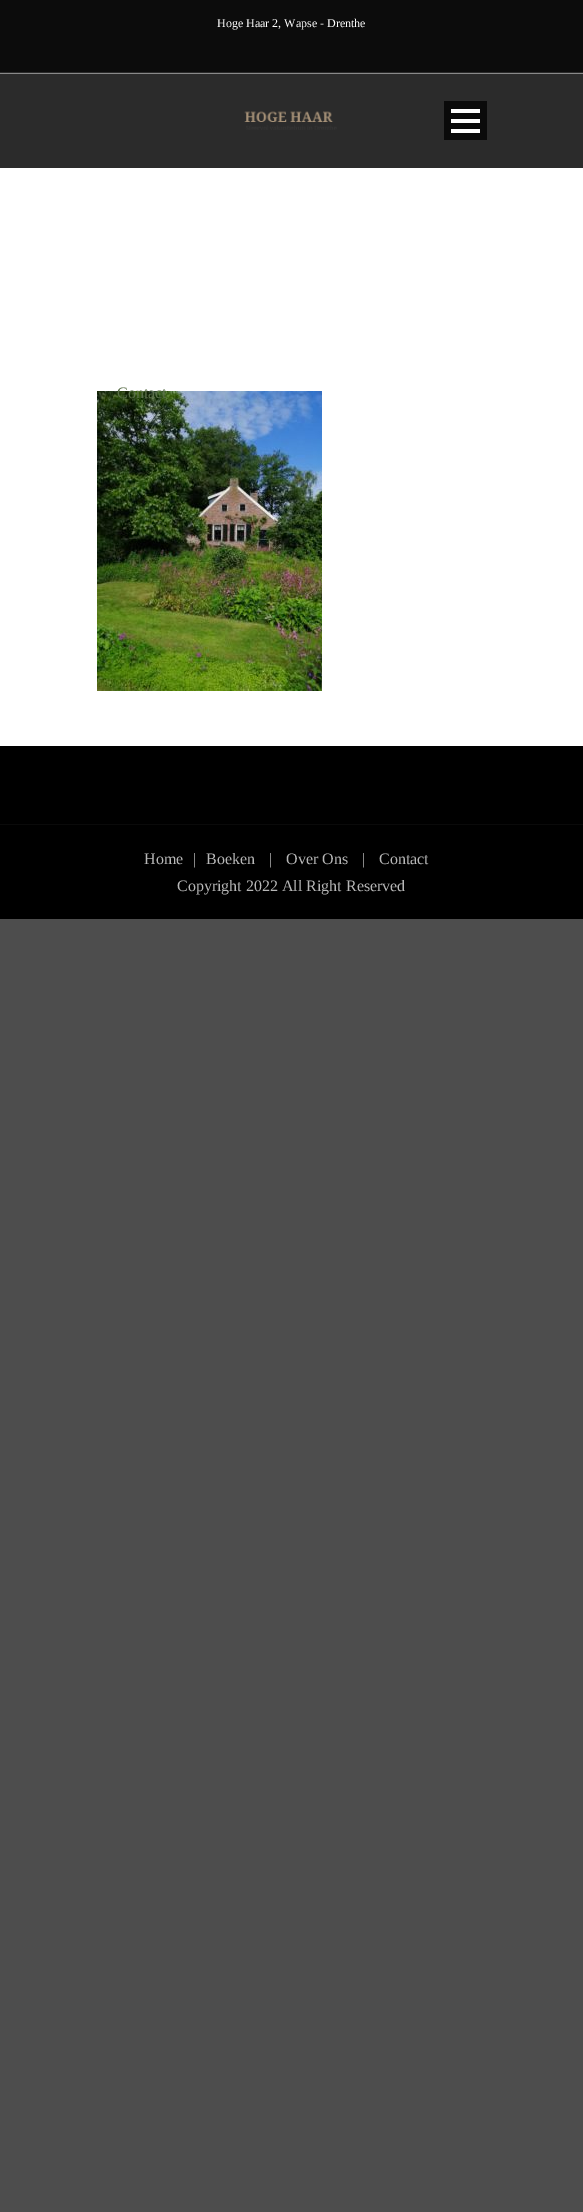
%!PS
<< /PageSize [583 2212] >> setpagedevice
/rgb { 3 { 255 div 3 1 roll } repeat setrgbcolor } def
/font { [ exch dup neg 0 0 3 -1 roll 0 0 ] selectfont } def
/picture { 5 dict begin { /h /w /y /x /name } { exch def } forall
  gsave x y translate w h scale
  w h 8 [w 0 0 h 0 0] name (r) file false 3 colorimage grestore end } def
0 2212 translate 1 -1 scale
4 setmiterlimit
77 77 77 rgb
0 0 583 2212 rectfill
[
  [0 168 583 578 255 255 255]
  [0 72 583 96 43 43 43]
  [0 0 583 72 12 12 12]
  [0 73 583 1 137 137 137]
] { aload pop rgb rectfill } forall
(img/1.rgb) 244 111 93 19 picture
[
  [444 101 43 39 10 10 10]
  [451 129 29 4 255 255 255]
  [451 119 29 4 255 255 255]
  [451 109 29 4 255 255 255]
] { aload pop rgb rectfill } forall
(img/2.rgb) 97 391 225 300 picture
0 0 0 rgb
0 746 583 173 rectfill
10 10 10 rgb
0 824 583 1 rectfill
/LiberationSerif-Regular 12 font
255 255 255 rgb
217 27 moveto (Hoge Haar 2, Wapse - Drenthe) show
/LiberationSerif-Regular 16 font
89 110 73 rgb
117 398 moveto (Contact) show
183 183 183 rgb
[
  [(Home) 144 864]
  [(|) 193 864]
  [(Boeken) 206 864]
  [(|) 269 864]
  [(Over Ons) 286 864]
  [(|) 362 864]
  [(Contact) 379 864]
  [(Copyright 2022 All Right Reserved) 177 891]
] { aload pop moveto show } forall
showpage
